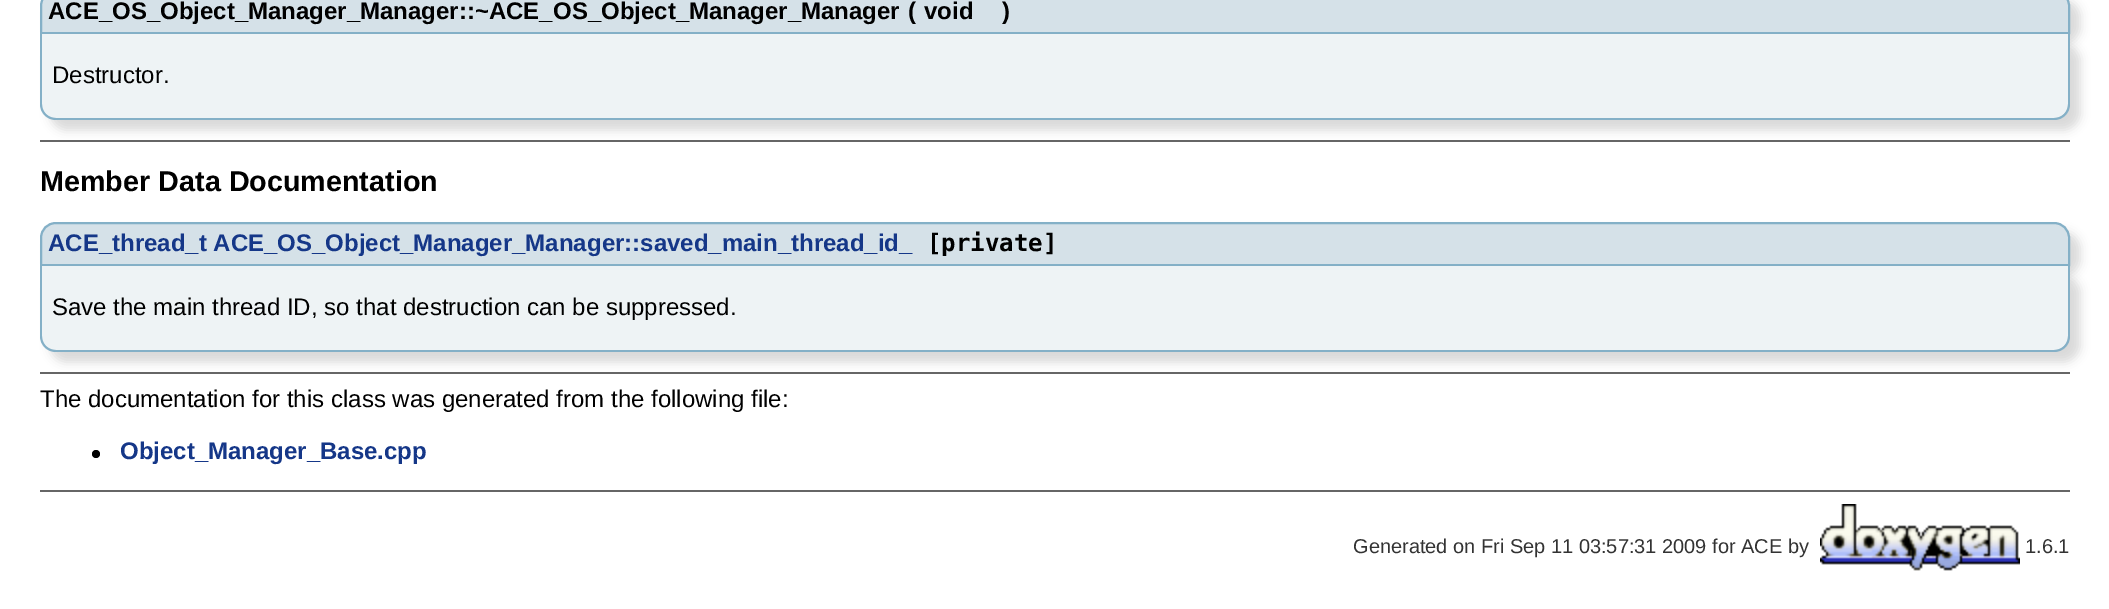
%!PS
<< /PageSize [2109 609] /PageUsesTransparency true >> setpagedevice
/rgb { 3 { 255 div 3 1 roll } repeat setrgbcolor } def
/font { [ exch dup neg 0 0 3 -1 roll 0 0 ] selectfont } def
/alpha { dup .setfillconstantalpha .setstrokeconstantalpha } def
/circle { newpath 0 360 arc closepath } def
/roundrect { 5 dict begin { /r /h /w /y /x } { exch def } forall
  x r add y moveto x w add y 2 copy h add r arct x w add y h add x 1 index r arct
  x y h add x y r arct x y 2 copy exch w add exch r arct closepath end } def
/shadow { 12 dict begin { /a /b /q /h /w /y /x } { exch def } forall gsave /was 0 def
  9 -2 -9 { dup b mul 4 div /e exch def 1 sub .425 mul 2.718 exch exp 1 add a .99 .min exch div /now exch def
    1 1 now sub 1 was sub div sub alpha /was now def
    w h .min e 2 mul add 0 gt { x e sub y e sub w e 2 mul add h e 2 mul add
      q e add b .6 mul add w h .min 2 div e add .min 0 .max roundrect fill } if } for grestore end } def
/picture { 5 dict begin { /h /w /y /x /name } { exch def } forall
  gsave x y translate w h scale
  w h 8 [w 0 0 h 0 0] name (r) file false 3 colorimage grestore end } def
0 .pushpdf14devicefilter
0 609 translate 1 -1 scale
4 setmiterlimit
255 255 255 rgb
0 0 2109 609 rectfill
0 0 0 rgb
50 0 2030 44 16 5 0.15 shadow
213 225 232 rgb
56 -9 moveto 2054 -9 lineto 2062.5 -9 2069 -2.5 2069 6 curveto 2069 33 lineto 41 33 lineto 41 6 lineto 41 -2.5 47.5 -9 56 -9 curveto closepath gsave fill grestore
132 176 199 rgb
2 setlinewidth
stroke
0 0 0 rgb
50 44 2030 86 16 5 0.15 shadow
238 243 245 rgb
42 34 moveto 2068 34 lineto 2068 104 lineto 2068 111.5 2061.5 118 2054 118 curveto 56 118 lineto 48.5 118 42 111.5 42 104 curveto closepath fill
132 176 199 rgb
40 34 moveto 2070 34 lineto 2070 104 lineto 2070 113 2063 120 2054 120 curveto 56 120 lineto 47 120 40 113 40 104 curveto closepath 42 34 moveto 2068 34 lineto 2068 104 lineto 2068 112 2062 118 2054 118 curveto 56 118 lineto 48 118 42 112 42 104 curveto closepath eofill
102 102 102 rgb
40 140 2030 2 rectfill
0 0 0 rgb
50 232 2030 44 16 5 0.15 shadow
213 225 232 rgb
56 223 moveto 2054 223 lineto 2062.5 223 2069 229.5 2069 238 curveto 2069 265 lineto 41 265 lineto 41 238 lineto 41 229.5 47.5 223 56 223 curveto closepath gsave fill grestore
132 176 199 rgb
stroke
0 0 0 rgb
50 276 2030 86 16 5 0.15 shadow
238 243 245 rgb
42 266 moveto 2068 266 lineto 2068 336 lineto 2068 343.5 2061.5 350 2054 350 curveto 56 350 lineto 48.5 350 42 343.5 42 336 curveto closepath fill
132 176 199 rgb
40 266 moveto 2070 266 lineto 2070 336 lineto 2070 345 2063 352 2054 352 curveto 56 352 lineto 47 352 40 345 40 336 curveto closepath 42 266 moveto 2068 266 lineto 2068 336 lineto 2068 344 2062 350 2054 350 curveto 56 350 lineto 48 350 42 344 42 336 curveto closepath eofill
102 102 102 rgb
40 372 2030 2 rectfill
0 0 0 rgb
96 454 4 circle fill
102 102 102 rgb
40 490 2030 2 rectfill
(img/1.rgb) 1820 504 200 67 picture
/LiberationSans-Bold 24 font
0 0 0 rgb
[
  [(ACE_OS_Object_Manager_Manager::~ACE_OS_Object_Manager_Manager) 48 19]
  [(\() 908 19]
  [(void) 924 19]
  [(\)) 1002 19]
] { aload pop moveto show } forall
/LiberationSans-Regular 24 font
52 83 moveto (Destructor.) show
/LiberationSans-Bold 28.75 font
40 191 moveto (Member Data Documentation) show
/LiberationSans-Bold 24 font
21 55 136 rgb
48 251 moveto (ACE_thread_t ACE_OS_Object_Manager_Manager::saved_main_thread_id_) show
/DejaVuSansMono-Bold 24 font
0 0 0 rgb
927 251 moveto ([private]) show
/LiberationSans-Regular 24 font
52 315 moveto (Save the main thread ID, so that destruction can be suppressed.) show
40 407 moveto (The documentation for this class was generated from the following file:) show
/LiberationSans-Bold 24 font
21 55 136 rgb
120 459 moveto (Object_Manager_Base.cpp) show
/LiberationSans-Regular 20 font
51 51 51 rgb
1353 553 moveto (Generated on Fri Sep 11 03:57:31 2009 for ACE by) show
2025 553 moveto (1.6.1) show
.poppdf14devicefilter showpage
